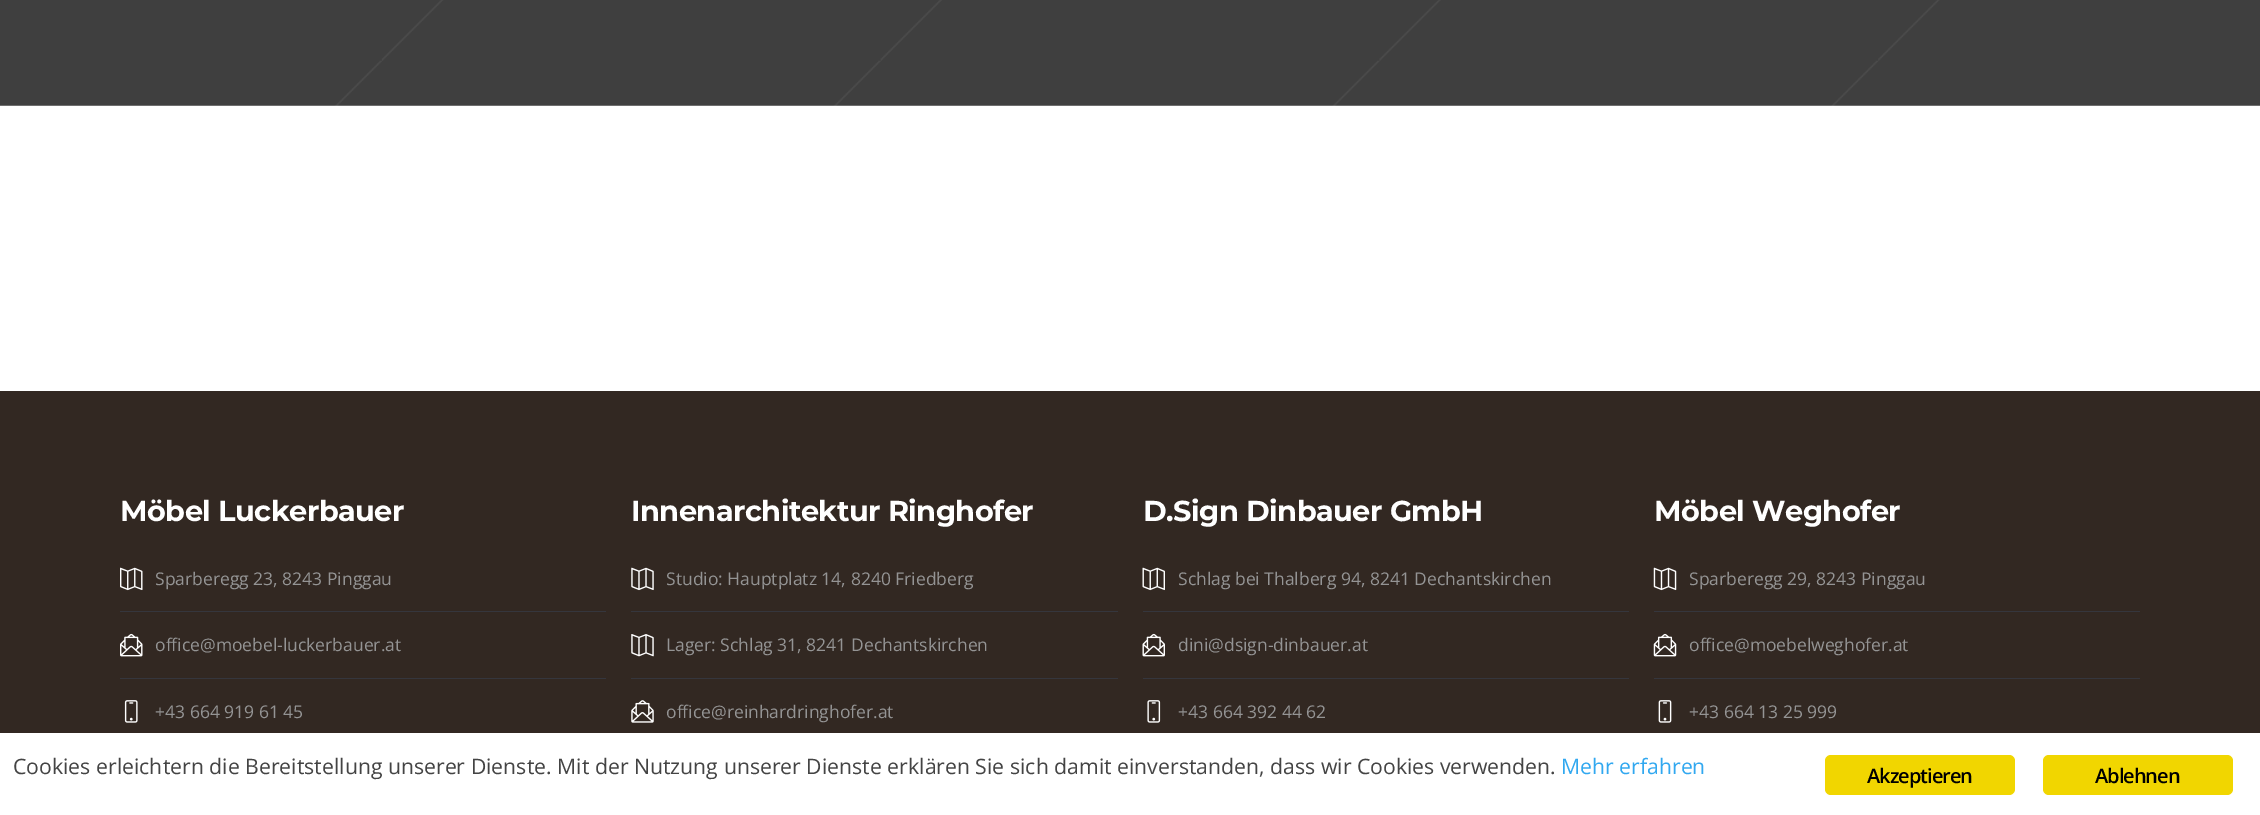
%!PS
<< /PageSize [2260 815] >> setpagedevice
/rgb { 3 { 255 div 3 1 roll } repeat setrgbcolor } def
/font { [ exch dup neg 0 0 3 -1 roll 0 0 ] selectfont } def
/roundrect { 5 dict begin { /r /h /w /y /x } { exch def } forall
  x r add y moveto x w add y 2 copy h add r arct x w add y h add x 1 index r arct
  x y h add x y r arct x y 2 copy exch w add exch r arct closepath end } def
/picture { 5 dict begin { /h /w /y /x /name } { exch def } forall
  gsave x y translate w h scale
  w h 8 [w 0 0 h 0 0] name (r) file false 3 colorimage grestore end } def
0 815 translate 1 -1 scale
4 setmiterlimit
255 255 255 rgb
0 0 2260 815 rectfill
(img/1.rgb) 0 0 2260 106 picture
50 40 34 rgb
0 391 2260 342 rectfill
(img/2.rgb) 120 567 23 24 picture
53 54 61 rgb
120 611 486 1 rectfill
(img/3.rgb) 120 633 23 24 picture
120 678 486 1 rectfill
(img/4.rgb) 124 700 14 23 picture
(img/5.rgb) 631 567 23 24 picture
631 611 487 1 rectfill
(img/6.rgb) 631 634 23 23 picture
631 678 487 1 rectfill
(img/7.rgb) 631 700 23 23 picture
(img/8.rgb) 1142 567 23 24 picture
1143 611 486 1 rectfill
(img/9.rgb) 1142 633 23 24 picture
1143 678 486 1 rectfill
(img/10.rgb) 1147 700 14 23 picture
(img/11.rgb) 1653 567 24 24 picture
1654 611 486 1 rectfill
(img/12.rgb) 1653 633 24 24 picture
1654 678 486 1 rectfill
(img/13.rgb) 1658 700 14 23 picture
241 214 0 rgb
1825 755 190 40 6 roundrect fill
2043 755 190 40 6 roundrect fill
/Montserrat-Bold 28.75 font
255 255 255 rgb
120 521 moveto -0.5 0 (Möbel Luckerbauer) ashow
/OpenSans-Regular 17.5 font
148 148 148 rgb
[
  [(Sparberegg 23, 8243 Pinggau) 155 585]
  [(office@moebel-luckerbauer.at) 155 651]
  [(+43 664 919 61 45) 155 718]
] { aload pop moveto show } forall
/Montserrat-Bold 28.75 font
255 255 255 rgb
631 521 moveto -0.5 0 (Innenarchitektur Ringhofer) ashow
/OpenSans-Regular 17.5 font
148 148 148 rgb
[
  [(Studio: Hauptplatz 14, 8240 Friedberg) 666 585]
  [(Lager: Schlag 31, 8241 Dechantskirchen) 666 651]
  [(office@reinhardringhofer.at) 666 718]
] { aload pop moveto show } forall
/Montserrat-Bold 28.75 font
255 255 255 rgb
1143 521 moveto -0.5 0 (D.Sign Dinbauer GmbH) ashow
/OpenSans-Regular 17.5 font
148 148 148 rgb
[
  [(Schlag bei Thalberg 94, 8241 Dechantskirchen) 1178 585]
  [(dini@dsign-dinbauer.at) 1178 651]
  [(+43 664 392 44 62) 1178 718]
] { aload pop moveto show } forall
/Montserrat-Bold 28.75 font
255 255 255 rgb
1654 521 moveto -0.5 0 (Möbel Weghofer) ashow
/OpenSans-Regular 17.5 font
148 148 148 rgb
[
  [(Sparberegg 29, 8243 Pinggau) 1689 585]
  [(office@moebelweghofer.at) 1689 651]
  [(+43 664 13 25 999) 1689 718]
] { aload pop moveto show } forall
/OpenSans-Regular 21.25 font
68 68 68 rgb
13 774 moveto (Cookies erleichtern die Bereitstellung unserer Dienste. Mit der Nutzung unserer Dienste erklären Sie sich damit einverstanden, dass wir Cookies verwenden.) show
49 168 240 rgb
1561 774 moveto (Mehr erfahren) show
/OpenSans-SemiBold 20 font
0 0 0 rgb
1867 783 moveto -1 0 (Akzeptieren) ashow
2095 783 moveto -1 0 (Ablehnen) ashow
showpage
